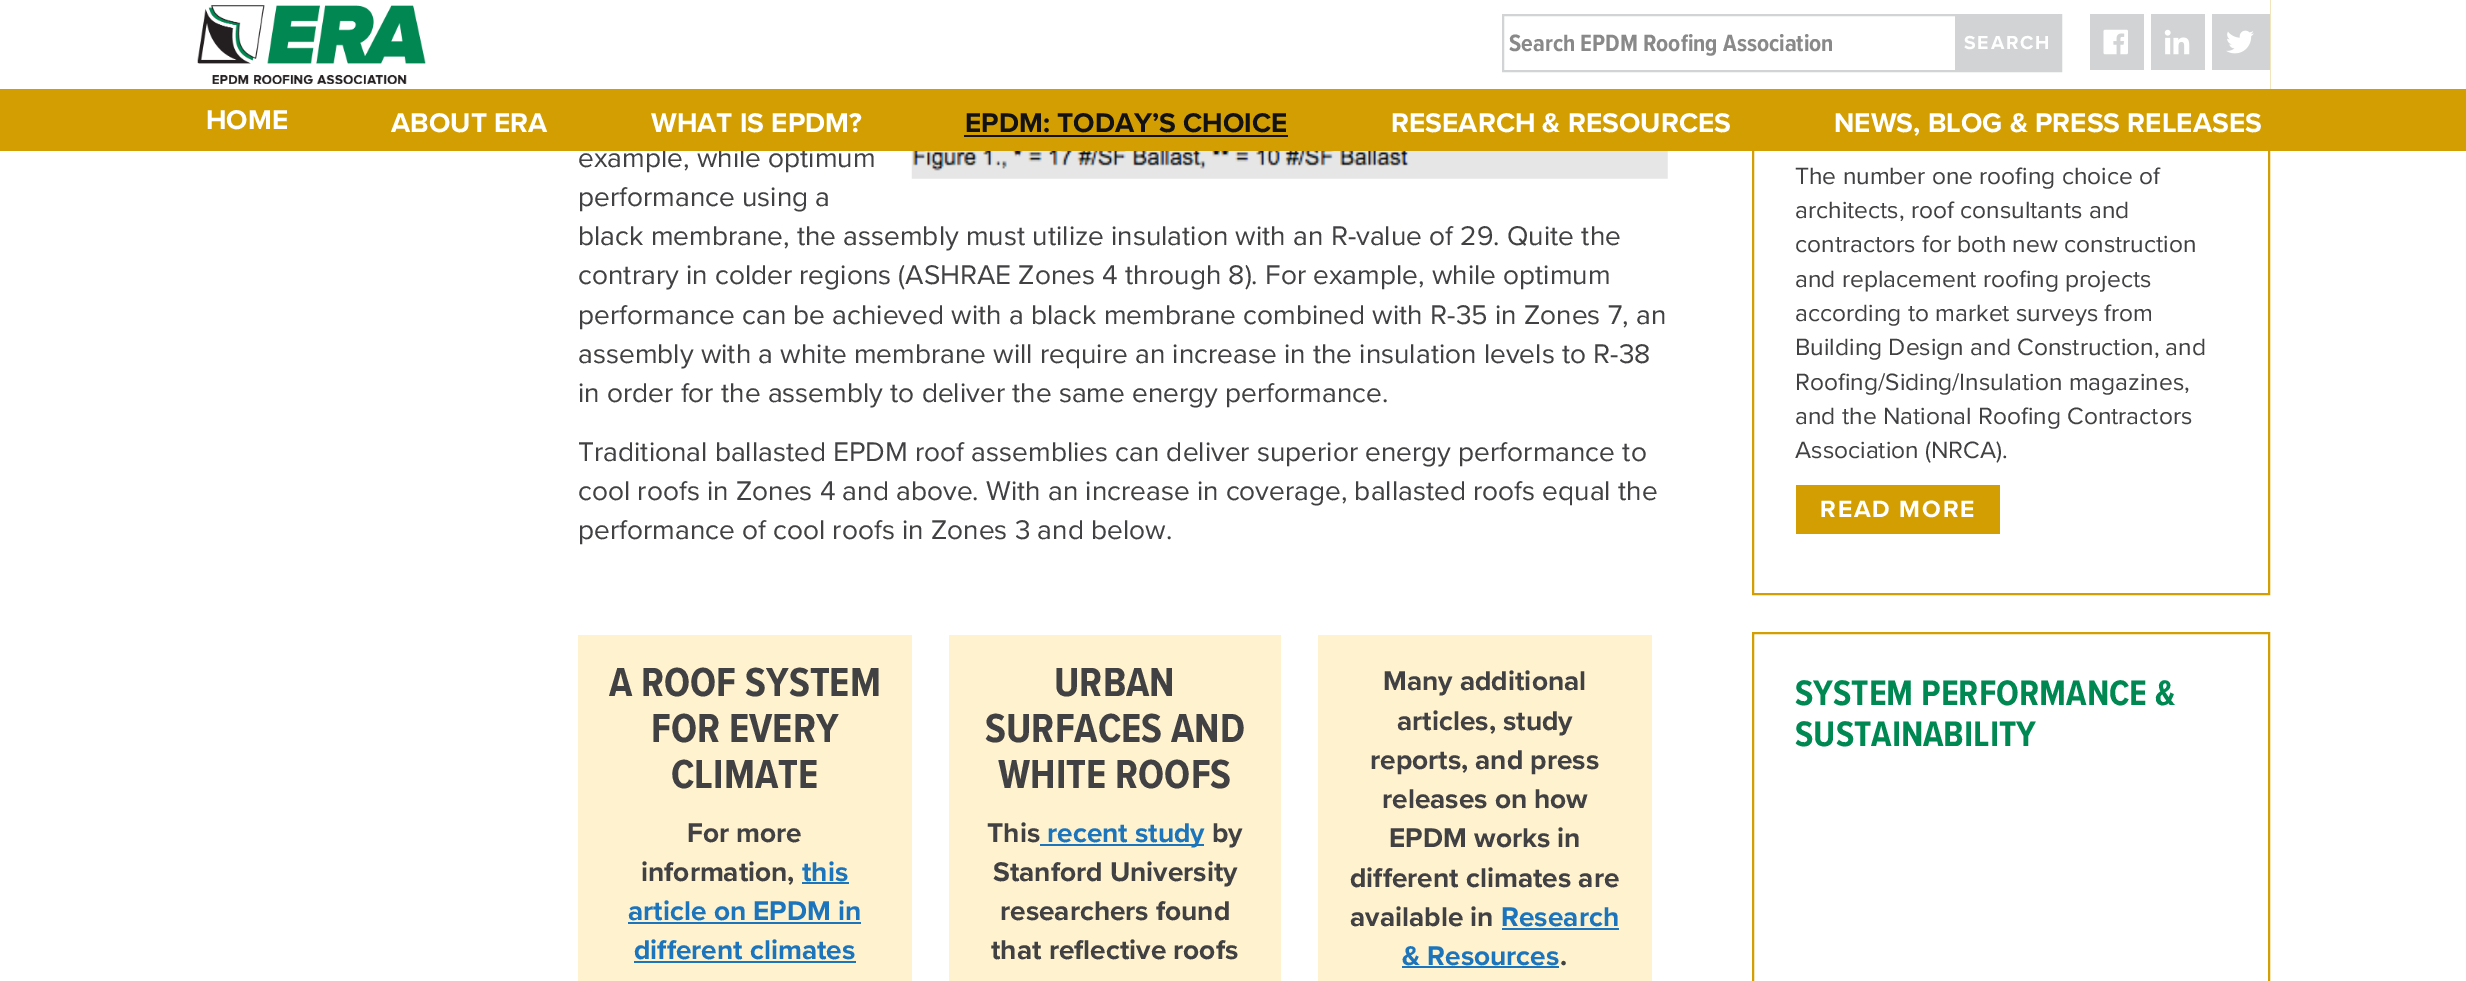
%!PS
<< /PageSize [2466 981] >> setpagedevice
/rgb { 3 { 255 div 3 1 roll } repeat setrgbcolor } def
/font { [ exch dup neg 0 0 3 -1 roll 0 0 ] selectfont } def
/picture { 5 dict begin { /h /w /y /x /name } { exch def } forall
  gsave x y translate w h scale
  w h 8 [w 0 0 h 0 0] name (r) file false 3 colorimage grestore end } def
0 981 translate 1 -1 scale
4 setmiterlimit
255 255 255 rgb
0 0 2466 981 rectfill
211 158 2 rgb
2 setlinewidth
1753 -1 516 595 rectstroke
255 255 255 rgb
1752 0 518 89 rectfill
(img/1.rgb) 197 5 229 79 picture
209 211 212 rgb
1503 15 558 56 rectstroke
1955 16 105 54 rectfill
2090 14 54 56 rectfill
(img/2.rgb) 2103 29 25 26 picture
2151 14 54 56 rectfill
(img/3.rgb) 2164 29 26 26 picture
2212 14 58 56 rectfill
(img/4.rgb) 2226 30 28 24 picture
(img/5.rgb) 911 151 757 28 picture
[
  [578 635 334 346 255 243 207]
  [802 882 47 2 28 117 188]
  [628 922 233 2 28 117 188]
  [634 961 222 2 28 117 188]
  [949 635 332 346 255 243 207]
  [1040 844 164 2 28 117 188]
  [1318 635 334 346 255 243 207]
  [1502 928 117 2 28 117 188]
  [1402 966 157 2 28 117 188]
  [1796 485 204 49 211 158 2]
] { aload pop rgb rectfill } forall
1753 633 516 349 rectstroke
/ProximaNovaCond-Bold 24.5 font
137 137 137 rgb
1509 51 moveto (Search EPDM Roofing Association) show
/ProximaNova-Bold 19.5 font
255 255 255 rgb
1964 49 moveto 1.75 0 (SEARCH) ashow
/ProximaNova-Regular 28 font
65 64 66 rgb
578 167 moveto (example, while optimum) show
211 158 2 rgb
0 89 2466 62 rectfill
/ProximaNova-Bold 28 font
255 255 255 rgb
1834 132 moveto (NEWS, BLOG & PRESS RELEASES) show
1391 132 moveto (RESEARCH & RESOURCES) show
18 18 18 rgb
965 132 moveto (EPDM: TODAY’S CHOICE) show
964 135 324 2 rectfill
255 255 255 rgb
[
  [(WHAT IS EPDM?) 651 132]
  [(ABOUT ERA) 391 132]
  [(HOME) 206 129]
] { aload pop moveto show } forall
/ProximaNova-Regular 28 font
65 64 66 rgb
[
  [(performance using a) 578 206]
  [(black membrane, the assembly must utilize insulation with an R-value of 29. Quite the) 578 245]
  [(contrary in colder regions \(ASHRAE Zones 4 through 8\). For example, while optimum) 578 284]
  [(performance can be achieved with a black membrane combined with R-35 in Zones 7, an) 578 324]
  [(assembly with a white membrane will require an increase in the insulation levels to R-38) 578 363]
  [(in order for the assembly to deliver the same energy performance.) 578 402]
  [(Traditional ballasted EPDM roof assemblies can deliver superior energy performance to) 578 461]
  [(cool roofs in Zones 4 and above. With an increase in coverage, ballasted roofs equal the) 578 500]
  [(performance of cool roofs in Zones 3 and below.) 578 539]
] { aload pop moveto show } forall
/ProximaNovaCond-Bold 42 font
[
  [(A ROOF SYSTEM) 609 696]
  [(FOR EVERY) 651 742]
  [(CLIMATE) 671 788]
] { aload pop moveto show } forall
/ProximaNova-Bold 28 font
687 842 moveto (For more) show
641 881 moveto (information,) show
28 117 188 rgb
[
  [(this) 802 881]
  [(article on EPDM in) 628 920]
  [(different climates) 634 959]
] { aload pop moveto show } forall
/ProximaNovaCond-Bold 42 font
65 64 66 rgb
[
  [(URBAN) 1054 696]
  [(SURFACES AND) 985 742]
  [(WHITE ROOFS) 998 788]
] { aload pop moveto show } forall
/ProximaNova-Bold 28 font
987 842 moveto (This) show
28 117 188 rgb
1047 842 moveto (recent study) show
65 64 66 rgb
[
  [(by) 1212 842]
  [(Stanford University) 993 881]
  [(researchers found) 1000 920]
  [(that reflective roofs) 991 959]
  [(Many additional) 1383 690]
  [(articles, study) 1397 730]
  [(reports, and press) 1370 769]
  [(releases on how) 1382 808]
  [(EPDM works in) 1389 847]
  [(different climates are) 1350 887]
  [(available in) 1350 926]
] { aload pop moveto show } forall
28 117 188 rgb
1501 926 moveto (Research) show
1402 965 moveto (& Resources) show
65 64 66 rgb
1560 965 moveto (.) show
/ProximaNova-Regular 24.5 font
[
  [(The number one roofing choice of) 1795 184]
  [(architects, roof consultants and) 1795 218]
  [(contractors for both new construction) 1795 252]
  [(and replacement roofing projects) 1795 287]
  [(according to market surveys from) 1795 321]
  [(Building Design and Construction, and) 1795 355]
  [(Roofing/Siding/Insulation magazines,) 1795 390]
  [(and the National Roofing Contractors) 1795 424]
  [(Association \(NRCA\).) 1795 458]
] { aload pop moveto show } forall
/ProximaNova-Bold 24.5 font
255 255 255 rgb
1820 517 moveto 1.75 0 (READ MORE) ashow
/ProximaNovaCond-Bold 36.75 font
0 136 82 rgb
1795 705 moveto (SYSTEM PERFORMANCE &) show
1795 746 moveto (SUSTAINABILITY) show
showpage
